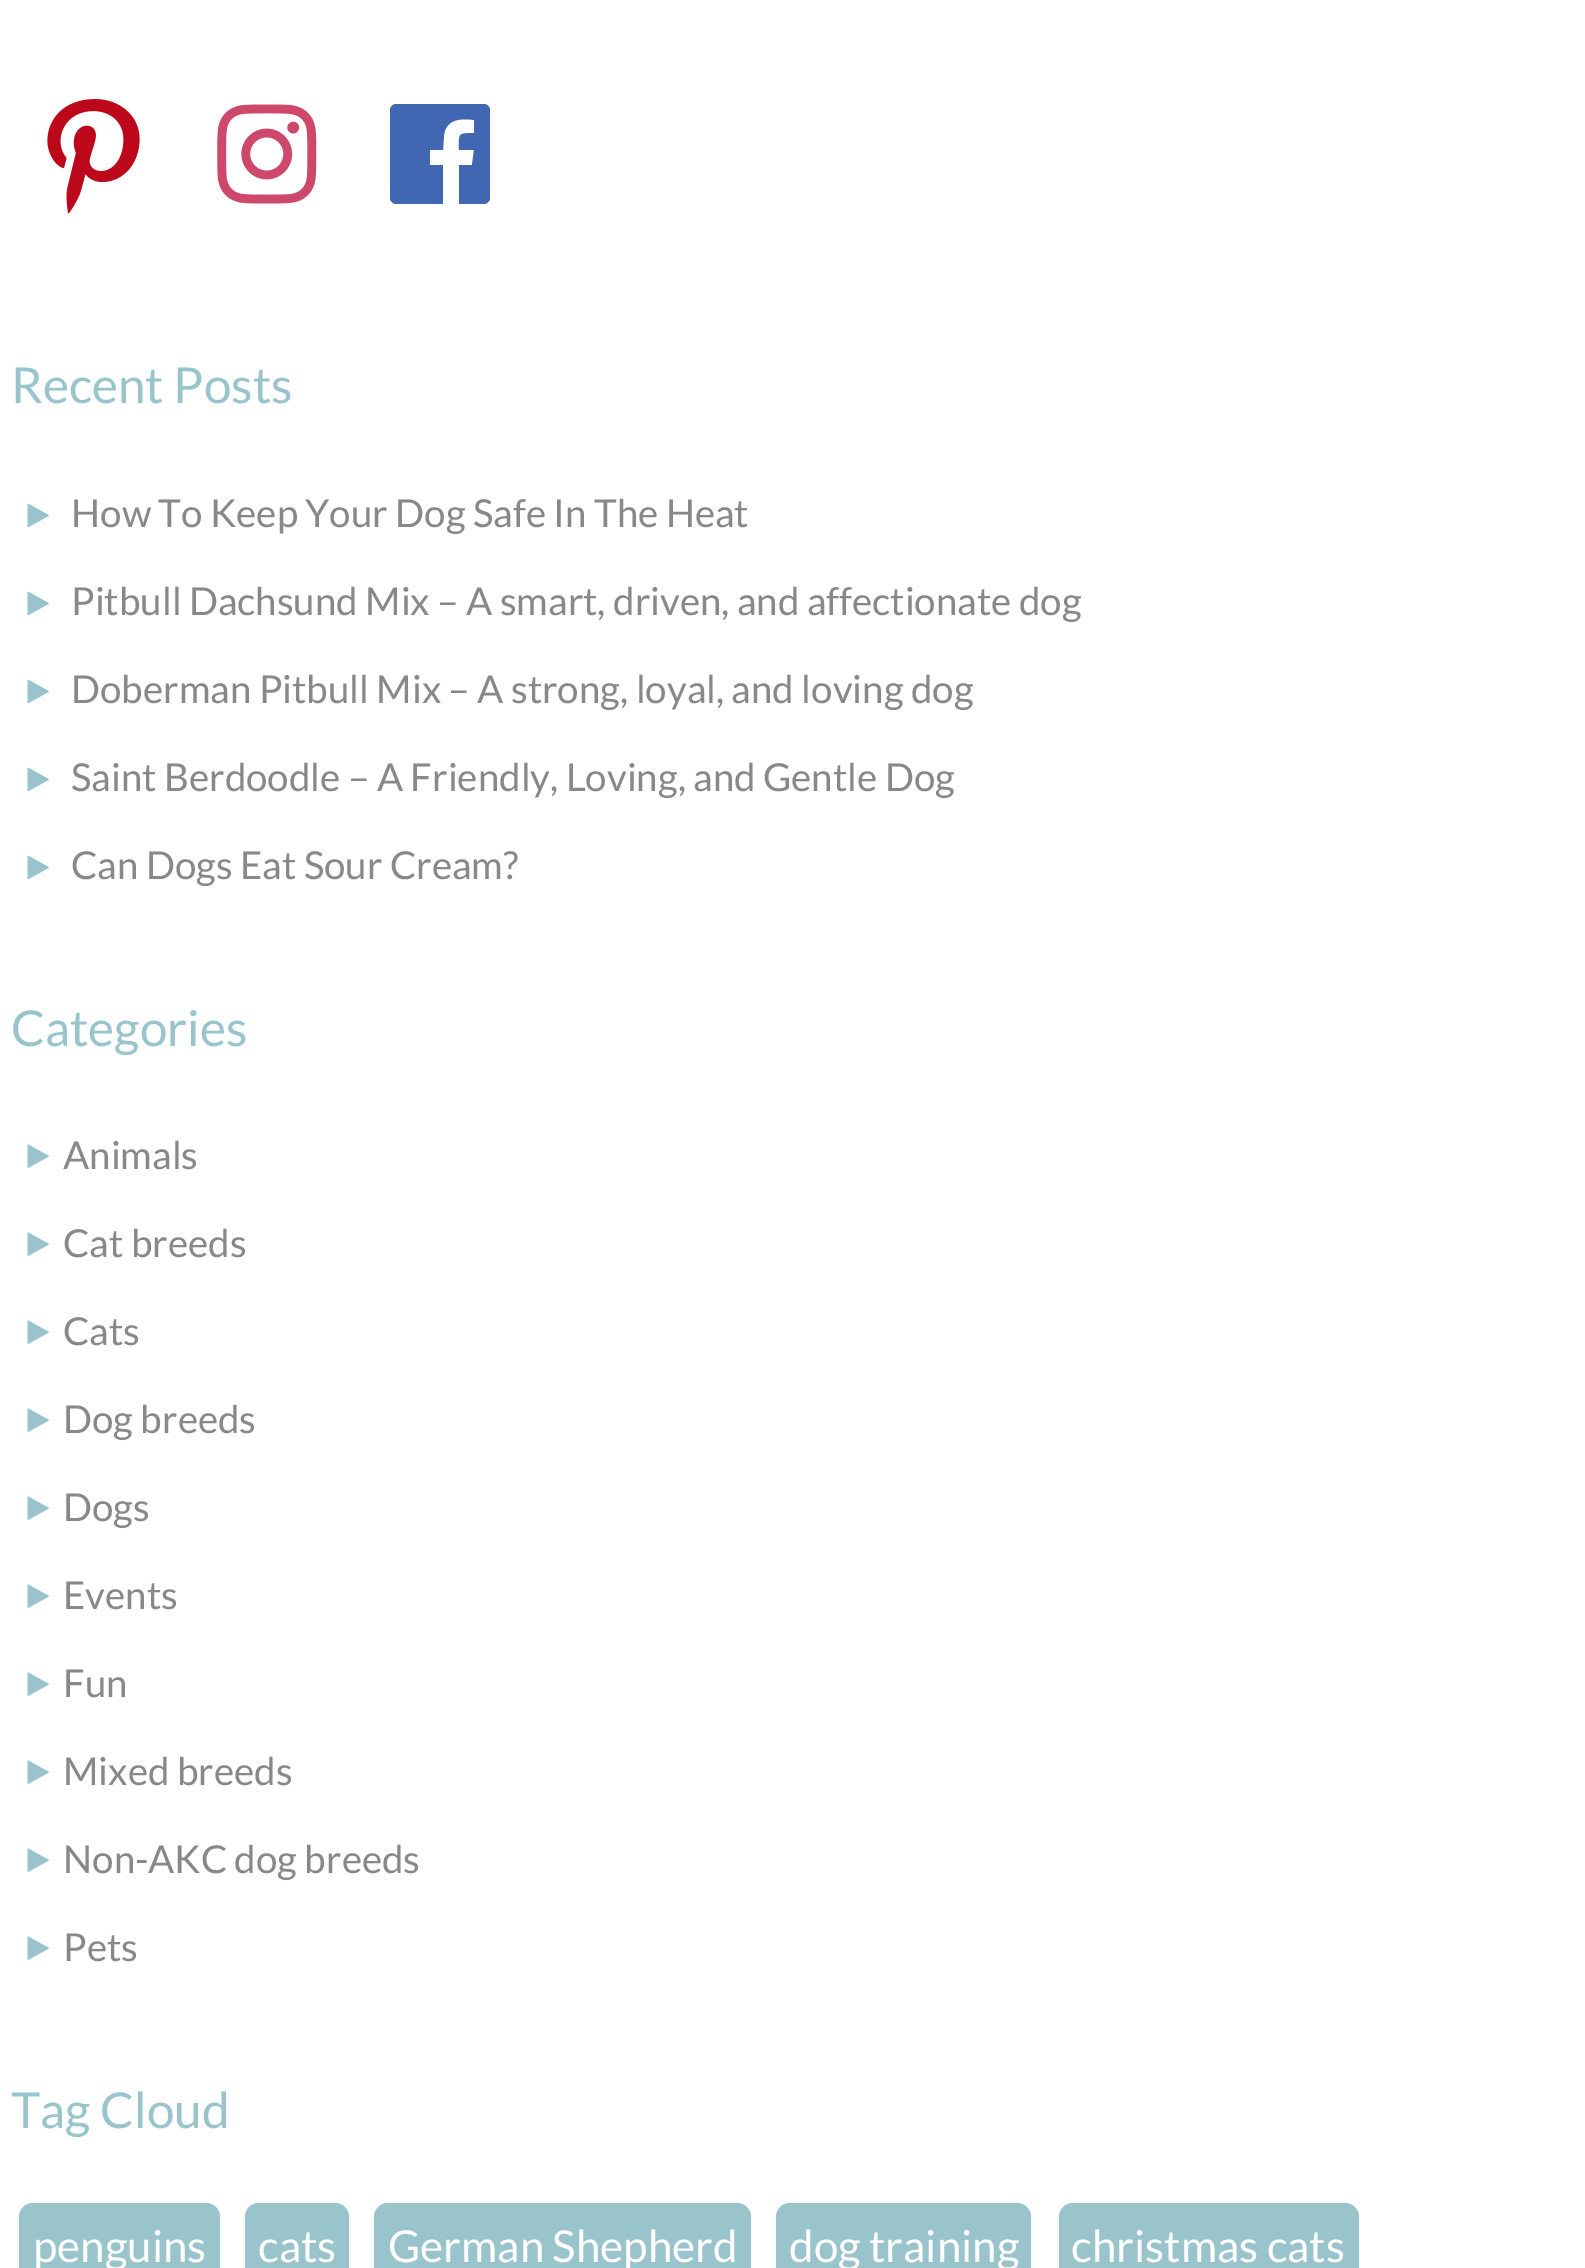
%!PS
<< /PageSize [1585 2268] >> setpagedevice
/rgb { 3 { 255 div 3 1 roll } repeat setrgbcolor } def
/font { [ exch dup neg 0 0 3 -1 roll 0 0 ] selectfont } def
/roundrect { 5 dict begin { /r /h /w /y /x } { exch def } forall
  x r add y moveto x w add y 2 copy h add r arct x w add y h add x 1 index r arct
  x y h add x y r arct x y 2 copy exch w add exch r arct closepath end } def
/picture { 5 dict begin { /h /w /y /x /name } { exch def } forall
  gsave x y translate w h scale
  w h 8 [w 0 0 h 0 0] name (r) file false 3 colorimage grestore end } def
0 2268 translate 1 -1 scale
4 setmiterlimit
255 255 255 rgb
0 0 1585 2268 rectfill
(img/1.rgb) 47 99 93 115 picture
(img/2.rgb) 217 104 100 100 picture
66 103 178 rgb
484 104 moveto 396 104 lineto 393 104 390 107 390 110 curveto 390 198 lineto 390 201 393 204 396 204 curveto 443 204 lineto 443 165 lineto 430 165 lineto 430 150 lineto 443 150 lineto 444 135 lineto 446 119 461 118 474 120 curveto 474 133 lineto 457 133 459 134 459 150 curveto 474 150 lineto 472 165 lineto 459 165 lineto 459 204 lineto 484 204 lineto 487 204 490 201 490 198 curveto 490 110 lineto 490 107 487 104 484 104 curveto closepath fill
(img/3.rgb) 27 503 22 25 picture
(img/3.rgb) 27 591 22 25 picture
(img/3.rgb) 27 679 22 25 picture
(img/3.rgb) 27 767 22 25 picture
(img/3.rgb) 27 855 22 25 picture
(img/4.rgb) 27 1144 22 24 picture
(img/4.rgb) 27 1232 22 24 picture
(img/4.rgb) 27 1320 22 24 picture
(img/4.rgb) 27 1408 22 24 picture
(img/4.rgb) 27 1496 22 24 picture
(img/4.rgb) 27 1584 22 24 picture
(img/4.rgb) 27 1672 22 24 picture
(img/4.rgb) 27 1760 22 24 picture
(img/4.rgb) 27 1848 22 24 picture
(img/4.rgb) 27 1936 22 24 picture
154 196 204 rgb
19 2203 201 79 14 roundrect fill
245 2203 104 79 14 roundrect fill
374 2203 377 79 14 roundrect fill
776 2203 255 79 14 roundrect fill
1059 2203 300 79 14 roundrect fill
/Lato-Regular 49.5 font
11 403 moveto (Recent Posts) show
/Lato-Regular 38.5 font
136 136 136 rgb
[
  [(How To Keep Your Dog Safe In The Heat) 71 527]
  [(Pitbull Dachsund Mix – A smart, driven, and affectionate dog) 71 615]
  [(Doberman Pitbull Mix – A strong, loyal, and loving dog) 71 703]
  [(Saint Berdoodle – A Friendly, Loving, and Gentle Dog) 71 791]
  [(Can Dogs Eat Sour Cream?) 71 879]
] { aload pop moveto show } forall
/Lato-Regular 49.5 font
154 196 204 rgb
11 1046 moveto (Categories) show
/Lato-Regular 38.5 font
136 136 136 rgb
[
  [(Animals) 63 1169]
  [(Cat breeds) 63 1257]
  [(Cats) 63 1345]
  [(Dog breeds) 63 1433]
  [(Dogs) 63 1521]
  [(Events) 63 1609]
  [(Fun) 63 1697]
  [(Mixed breeds) 63 1785]
  [(Non-AKC dog breeds) 63 1873]
  [(Pets) 63 1961]
] { aload pop moveto show } forall
/Lato-Regular 49.5 font
154 196 204 rgb
11 2128 moveto (Tag Cloud) show
/Lato-Regular 44 font
255 255 255 rgb
[
  [(penguins) 33 2262]
  [(cats) 258 2262]
  [(German Shepherd) 388 2262]
  [(dog training) 789 2262]
  [(christmas cats) 1071 2262]
] { aload pop moveto show } forall
showpage
